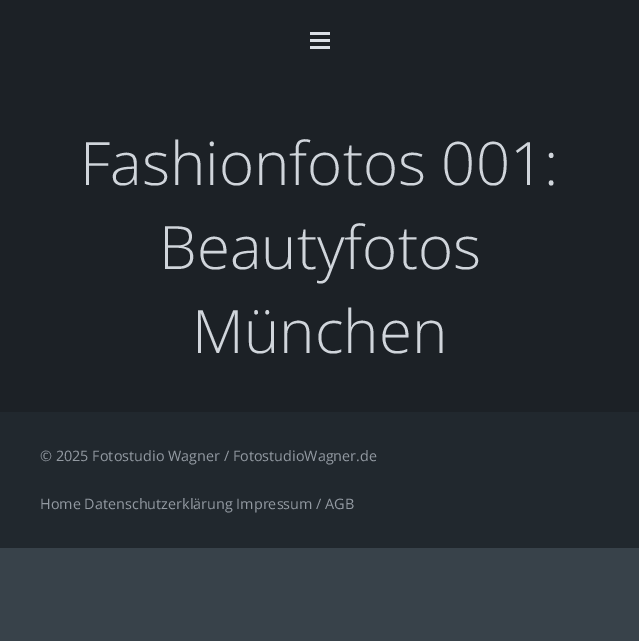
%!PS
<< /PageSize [639 641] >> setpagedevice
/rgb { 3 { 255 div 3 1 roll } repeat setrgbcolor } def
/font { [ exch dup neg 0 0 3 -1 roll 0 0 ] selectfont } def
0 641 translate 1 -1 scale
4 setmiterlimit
56 66 74 rgb
0 0 639 641 rectfill
[
  [0 0 639 412 28 33 38]
  [310 39 20 3 218 223 230]
  [310 32 20 3 218 223 230]
  [310 46 20 3 218 223 230]
  [0 412 639 136 33 40 46]
] { aload pop rgb rectfill } forall
/OpenSans-Light 60 font
208 213 219 rgb
[
  [(Fashionfotos 001:) 80 185]
  [(Beautyfotos) 159 269]
  [(München) 192 353]
] { aload pop moveto show } forall
/OpenSans-Regular 14.4 font
147 154 162 rgb
40 461 moveto (© 2025 Fotostudio Wagner / FotostudioWagner.de) show
40 509 moveto (Home Datenschutzerklärung Impressum / AGB) show
showpage
